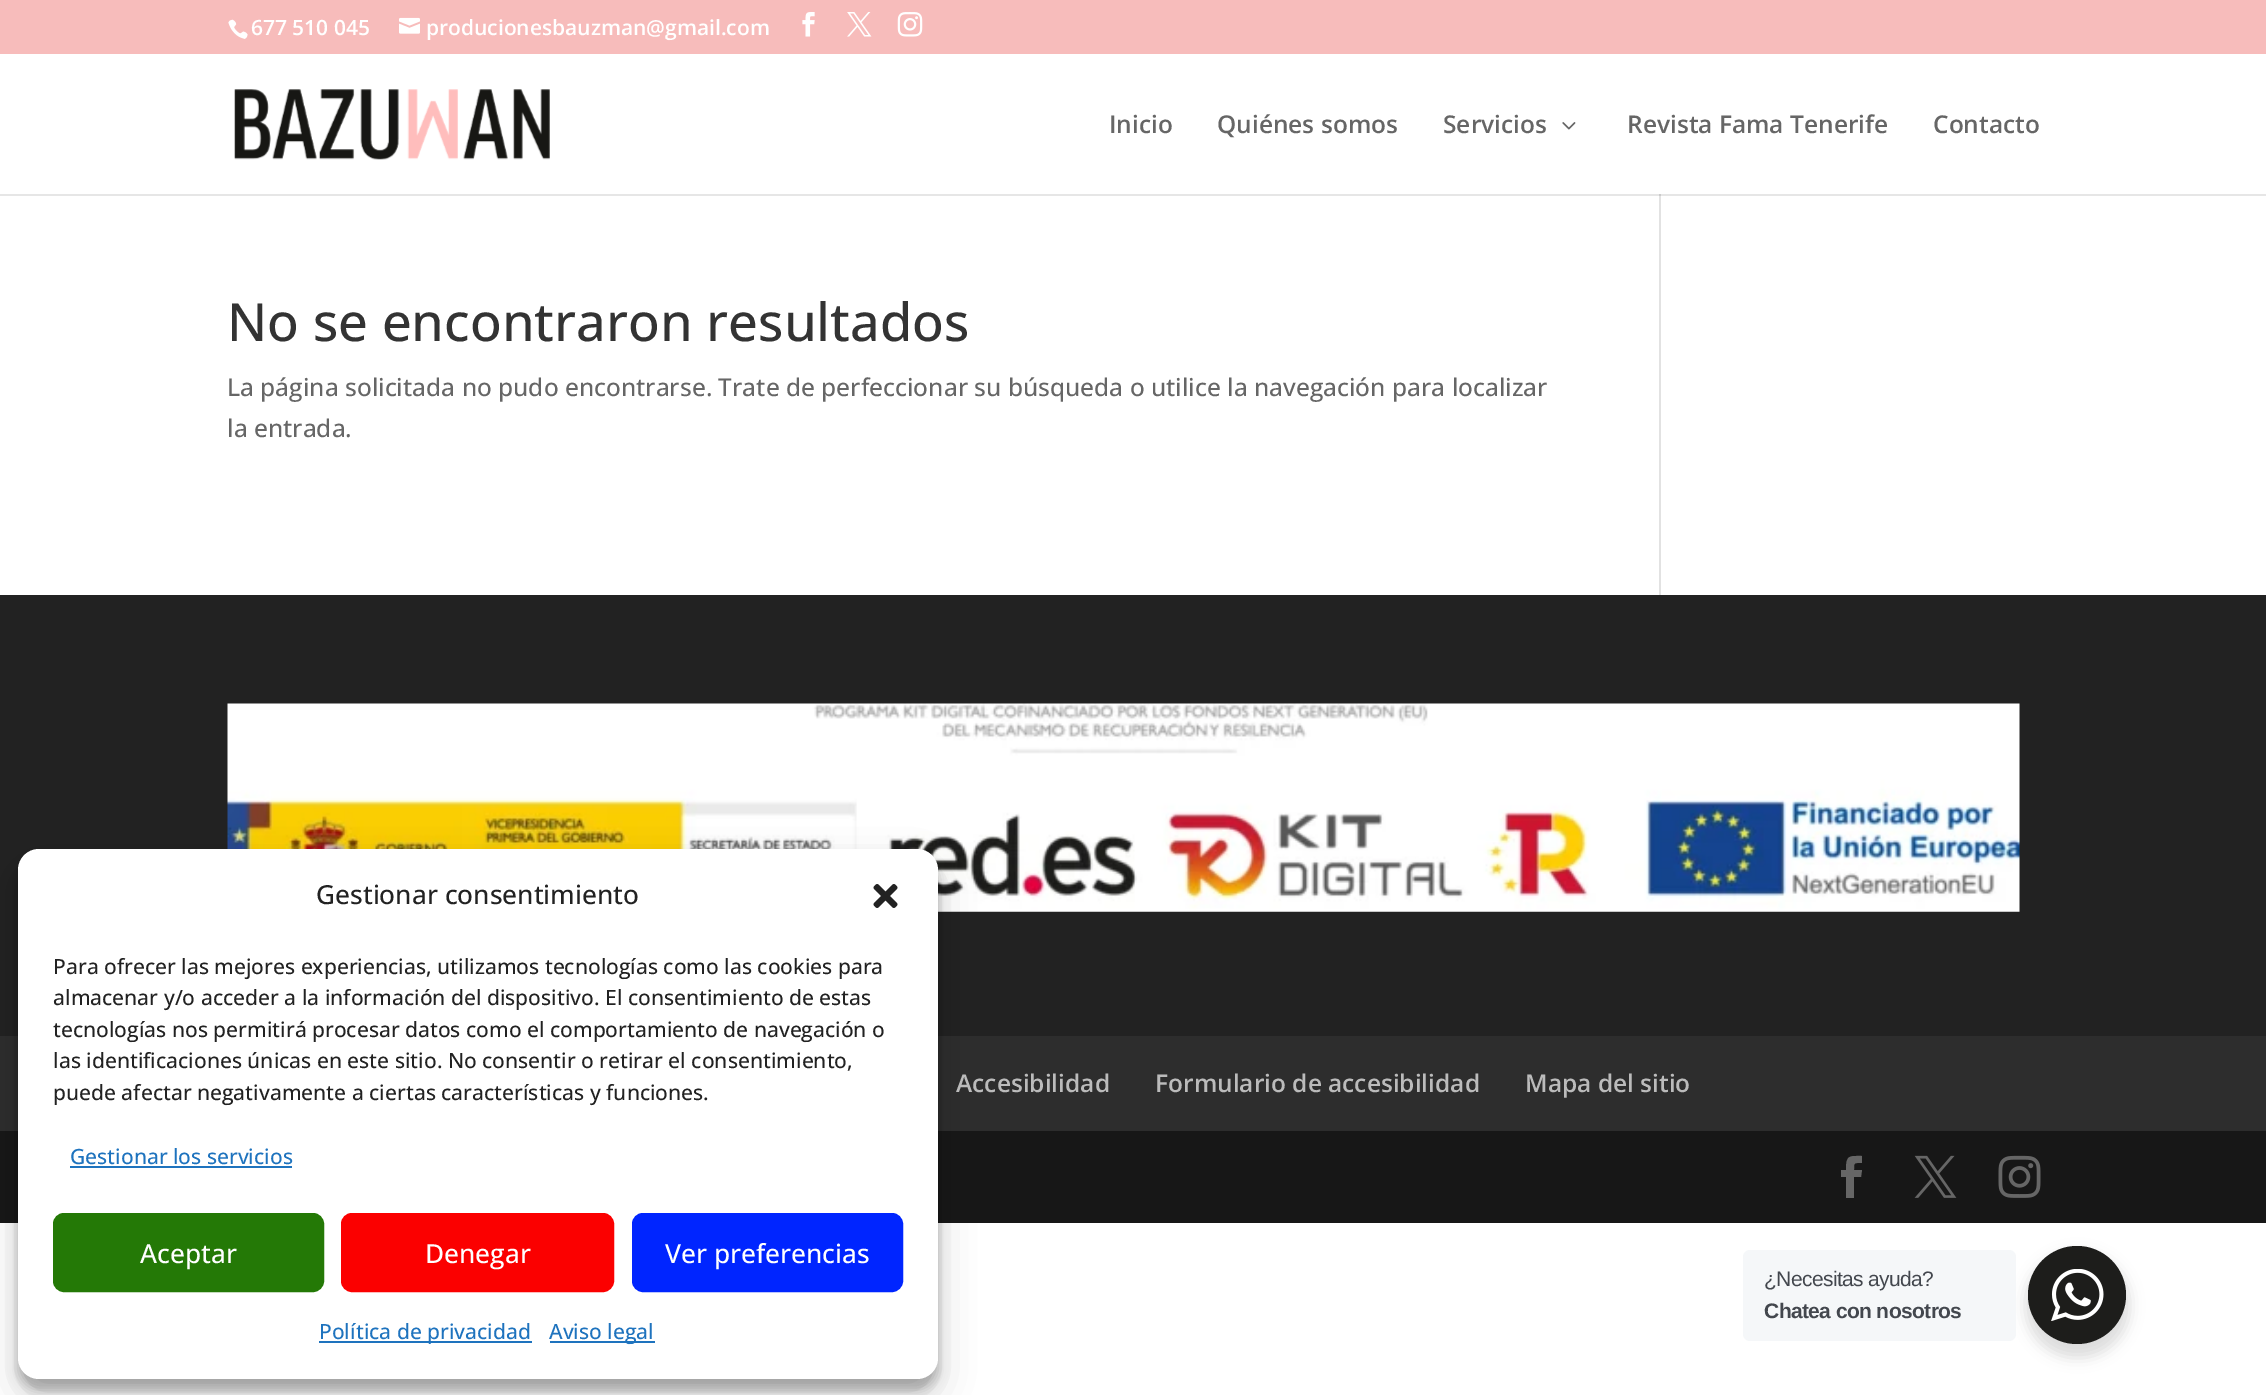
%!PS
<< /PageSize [2266 1395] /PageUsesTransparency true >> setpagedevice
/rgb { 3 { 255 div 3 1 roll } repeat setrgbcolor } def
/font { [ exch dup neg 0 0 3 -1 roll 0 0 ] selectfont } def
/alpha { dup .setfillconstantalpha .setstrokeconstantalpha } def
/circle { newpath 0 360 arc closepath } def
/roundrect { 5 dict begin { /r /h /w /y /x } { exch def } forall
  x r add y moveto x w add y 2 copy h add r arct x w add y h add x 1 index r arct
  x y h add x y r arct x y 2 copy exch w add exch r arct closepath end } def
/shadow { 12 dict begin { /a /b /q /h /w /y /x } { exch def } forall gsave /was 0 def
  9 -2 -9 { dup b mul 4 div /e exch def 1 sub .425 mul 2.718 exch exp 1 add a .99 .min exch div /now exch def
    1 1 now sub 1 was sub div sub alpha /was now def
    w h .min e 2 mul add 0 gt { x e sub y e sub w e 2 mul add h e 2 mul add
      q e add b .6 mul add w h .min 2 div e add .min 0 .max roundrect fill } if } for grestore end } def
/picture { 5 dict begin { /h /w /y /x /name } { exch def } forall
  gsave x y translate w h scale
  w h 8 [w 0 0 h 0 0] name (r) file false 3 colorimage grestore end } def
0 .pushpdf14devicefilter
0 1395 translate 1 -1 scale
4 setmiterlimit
255 255 255 rgb
0 0 2266 1395 rectfill
230 230 230 rgb
0 194 2266 2 rectfill
247 188 187 rgb
0 0 2266 54 rectfill
(img/1.rgb) 228 19 20 20 picture
(img/2.rgb) 399 17 21 17 picture
(img/3.rgb) 802 12 13 25 picture
(img/4.rgb) 847 12 25 25 picture
(img/5.rgb) 897 12 26 25 picture
(img/6.rgb) 234 89 316 71 picture
(img/7.rgb) 1562 122 14 8 picture
[
  [1659 194 2 401 226 226 226]
  [1659 194 2 2 203 203 203]
  [0 595 2266 441 34 34 34]
] { aload pop rgb rectfill } forall
(img/8.rgb) 227 703 1793 209 picture
45 45 45 rgb
0 1036 2266 95 rectfill
23 23 23 rgb
0 1131 2266 92 rectfill
102 102 102 rgb
1846 1198 moveto 1854 1198 lineto 1854 1177 lineto 1861 1177 lineto 1862 1170 lineto 1854 1170 lineto 1854 1162 1854 1163 1862 1163 curveto 1862 1156 lineto 1849 1156 1846 1155 1846 1170 curveto 1841 1170 lineto 1841 1177 lineto 1846 1177 lineto closepath fill
(img/9.rgb) 1914 1155 43 43 picture
(img/10.rgb) 1998 1155 43 43 picture
0 0 0 rgb
18 859 920 531 21 5 0.23 shadow
18 866 920 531 21 17.5 0.19 shadow
255 255 255 rgb
18 849 920 530 21 roundrect fill
(img/11.rgb) 873 884 25 24 picture
30 115 190 rgb
70 1166 222 2 rectfill
36 121 6 rgb
54 1214 269 77 10 roundrect gsave fill grestore
2 setlinewidth
stroke
251 0 0 rgb
342 1214 271 77 10 roundrect gsave fill grestore
stroke
0 37 255 rgb
633 1214 269 77 10 roundrect gsave fill grestore
stroke
30 115 190 rgb
319 1341 213 2 rectfill
550 1341 105 2 rectfill
0 0 0 rgb
2025 1253 105 105 52.5 7 0.14 shadow
245 247 249 rgb
1743 1250 273 91 7 roundrect fill
29 29 27 rgb
2077 1295 49 circle fill
(img/12.rgb) 2051 1269 53 52 picture
/OpenSans-SemiBold 21 font
255 255 255 rgb
251 35 moveto (677 510 045) show
426 35 moveto (producionesbauzman@gmail.com) show
/OpenSans-SemiBold 24.5 font
102 102 102 rgb
[
  [(Inicio) 1109 133]
  [(Quiénes somos) 1217 133]
  [(Servicios) 1443 133]
  [(Revista Fama Tenerife) 1627 133]
  [(Contacto) 1933 133]
] { aload pop moveto show } forall
/OpenSans-Medium 52.5 font
51 51 51 rgb
227 341 moveto (No se encontraron resultados) show
/OpenSans-Medium 24.5 font
102 102 102 rgb
227 396 moveto (La página solicitada no pudo encontrarse. Trate de perfeccionar su búsqueda o utilice la navegación para localizar) show
227 437 moveto (la entrada.) show
/OpenSans-SemiBold 24.5 font
187 187 187 rgb
[
  [(Accesibilidad) 956 1092]
  [(Formulario de accesibilidad) 1155 1092]
  [(Mapa del sitio) 1525 1092]
] { aload pop moveto show } forall
/OpenSans-Medium 26.25 font
34 34 34 rgb
316 904 moveto (Gestionar consentimiento) show
/OpenSans-Medium 21 font
[
  [(Para ofrecer las mejores experiencias, utilizamos tecnologías como las cookies para) 53 974]
  [(almacenar y/o acceder a la información del dispositivo. El consentimiento de estas) 53 1005]
  [(tecnologías nos permitirá procesar datos como el comportamiento de navegación o) 53 1037]
  [(las identificaciones únicas en este sitio. No consentir o retirar el consentimiento,) 53 1068]
  [(puede afectar negativamente a ciertas características y funciones.) 53 1100]
] { aload pop moveto show } forall
30 115 190 rgb
70 1164 moveto (Gestionar los servicios) show
/OpenSans-Medium 26.25 font
255 255 255 rgb
[
  [(Aceptar) 140 1263]
  [(Denegar) 425 1263]
  [(Ver preferencias) 665 1263]
] { aload pop moveto show } forall
/OpenSans-Medium 21 font
30 115 190 rgb
319 1339 moveto (Política de privacidad) show
549 1339 moveto (Aviso legal) show
/LiberationSans-Regular 21 font
67 71 78 rgb
1764 1286 moveto -0.6 0 (¿Necesitas ayuda?) ashow
/LiberationSans-Bold 21 font
1764 1318 moveto -0.6 0 (Chatea con nosotros) ashow
.poppdf14devicefilter showpage
